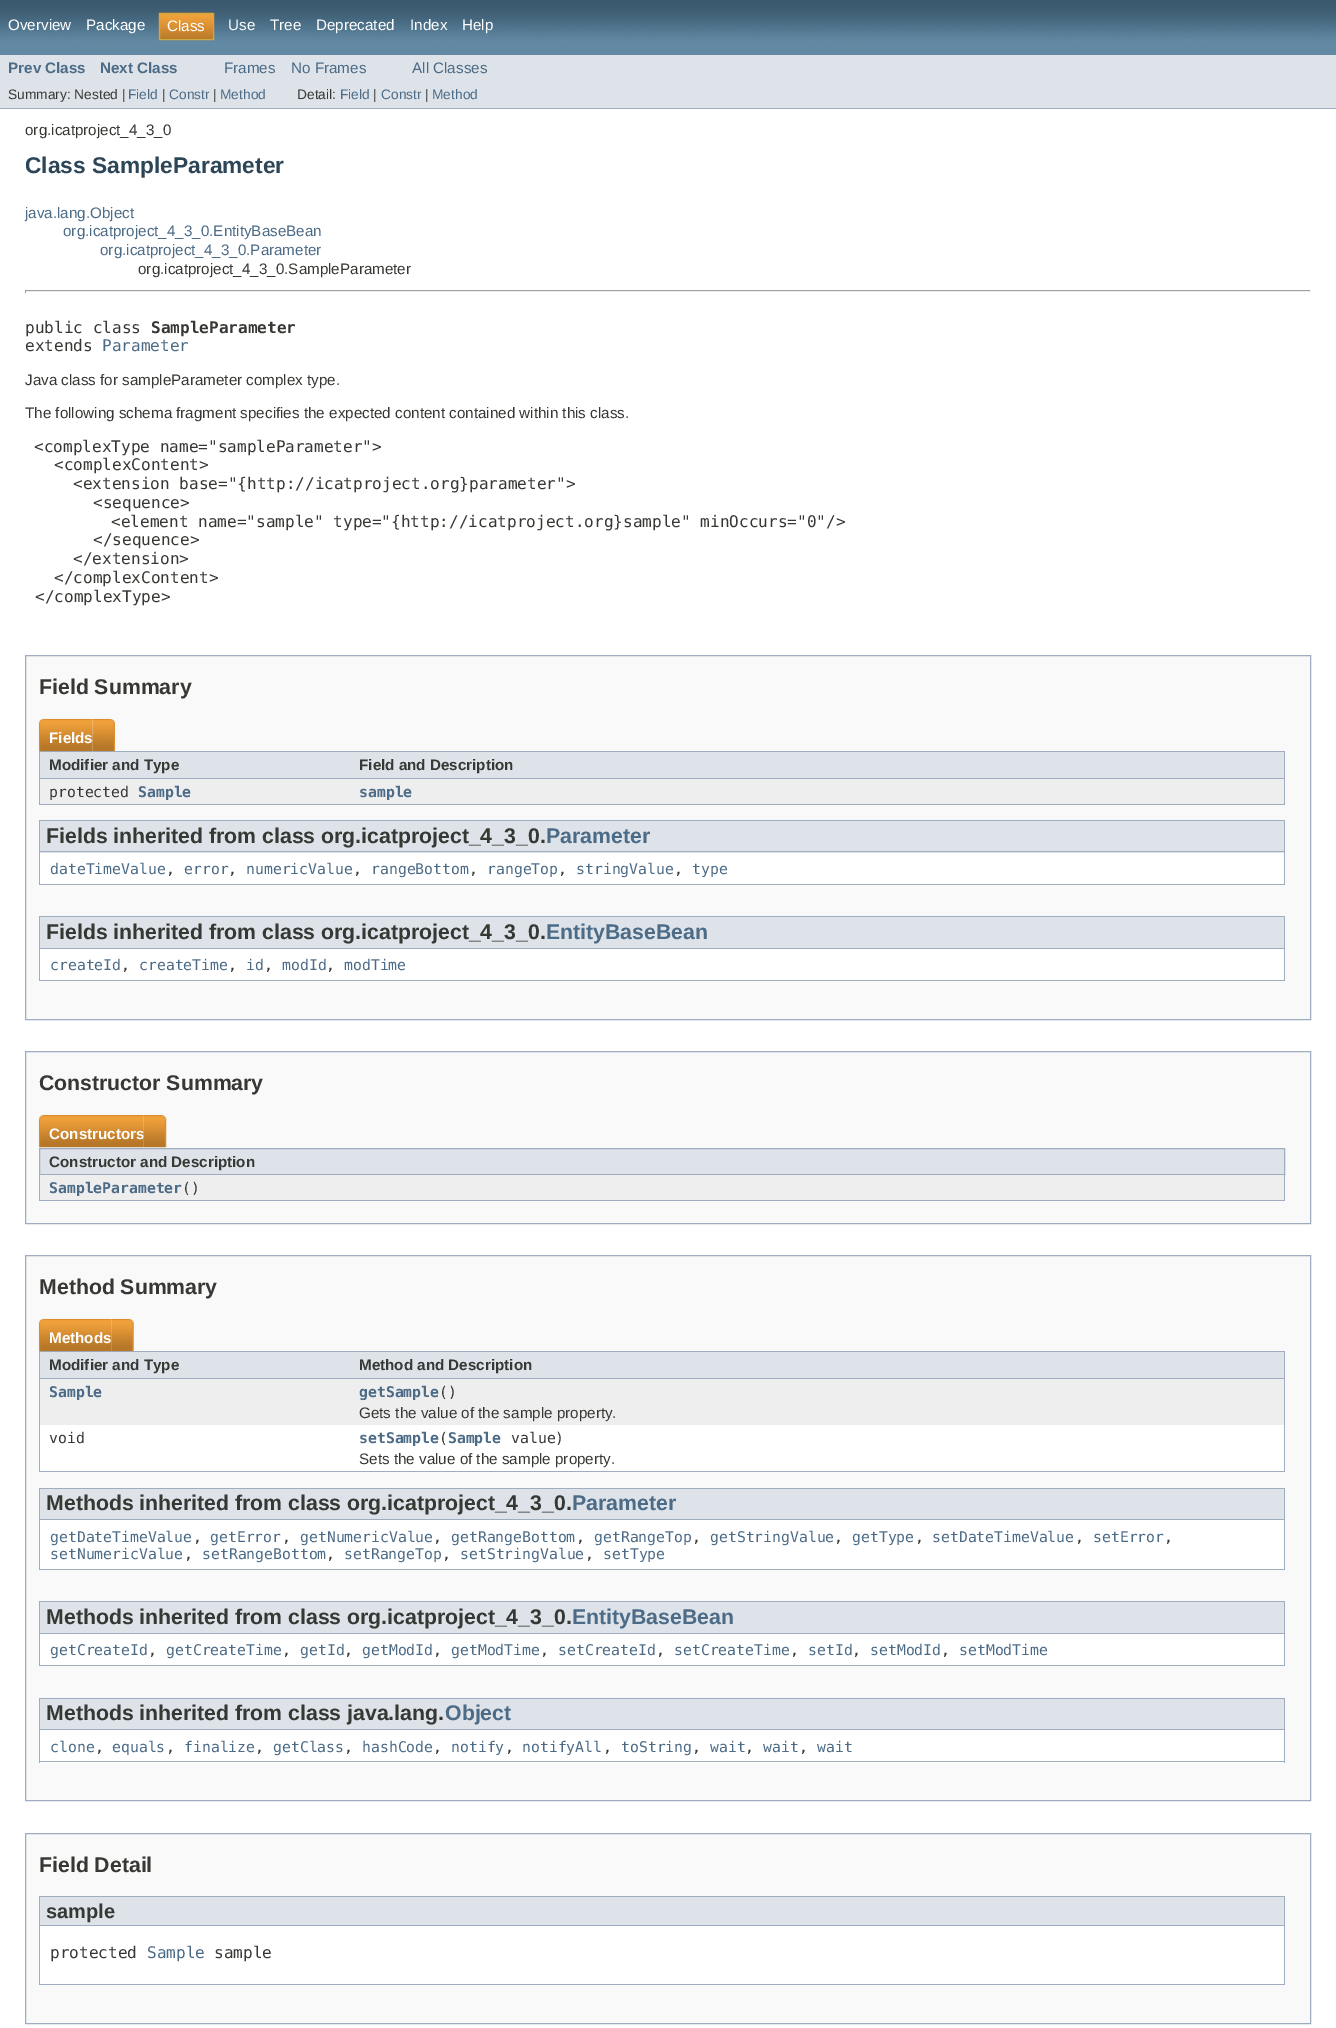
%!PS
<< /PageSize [1336 2028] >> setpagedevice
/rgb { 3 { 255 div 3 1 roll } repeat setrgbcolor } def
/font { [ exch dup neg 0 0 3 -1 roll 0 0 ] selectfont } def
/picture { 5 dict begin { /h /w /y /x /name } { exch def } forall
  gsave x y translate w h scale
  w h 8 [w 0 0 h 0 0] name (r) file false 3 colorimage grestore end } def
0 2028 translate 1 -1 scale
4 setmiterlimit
255 255 255 rgb
0 0 1336 2028 rectfill
(img/1.rgb) 0 0 1336 55 picture
(img/2.rgb) 158 12 56 28 picture
201 170 68 rgb
159.5 13.5 54 26 rectstroke
[
  [0 55 1336 53 222 227 233]
  [0 108 1336 1 158 173 192]
  [25 290 1286 1 159 159 159]
  [1310 290 1 3 238 238 238]
  [25 291 1286 1 238 238 238]
  [25 290 1 3 159 159 159]
] { aload pop rgb rectfill } forall
249 249 249 rgb
25.5 655.5 moveto 1310.5 655.5 lineto 1310.5 1019.5 lineto 25.5 1019.5 lineto closepath gsave fill grestore
158 173 192 rgb
stroke
[
  [39 804 1246 1 158 173 192]
  [39 751 1246 1 158 173 192]
  [39 778 311 1 158 173 192]
  [39 751 1 53 158 173 192]
] { aload pop rgb rectfill } forall
(img/3.rgb) 38 718 55 34 picture
[
  [40 752 1244 26 222 227 233]
  [1284 751 1 53 158 173 192]
  [350 778 935 1 158 173 192]
  [40 779 1244 25 238 238 239]
  [40 853 1244 31 255 255 255]
  [1284 820 1 65 158 173 192]
  [39 884 1246 1 158 173 192]
  [39 820 1 65 158 173 192]
  [40 821 1244 32 222 227 233]
  [40 820 1244 1 158 173 192]
  [40 851 1244 1 158 173 192]
  [40 949 1244 31 255 255 255]
  [1284 916 1 65 158 173 192]
  [39 980 1246 1 158 173 192]
  [39 916 1 65 158 173 192]
  [40 917 1244 31 222 227 233]
  [40 916 1244 1 158 173 192]
  [40 948 1244 1 158 173 192]
] { aload pop rgb rectfill } forall
249 249 249 rgb
25.5 1051.5 moveto 1310.5 1051.5 lineto 1310.5 1223.5 lineto 25.5 1223.5 lineto closepath gsave fill grestore
158 173 192 rgb
stroke
39 1200 1246 1 rectfill
(img/5.rgb) 38 1115 106 33 picture
222 227 233 rgb
39.5 1148.5 moveto 1284.5 1148.5 lineto 1284.5 1174.5 lineto 39.5 1174.5 lineto closepath gsave fill grestore
158 173 192 rgb
stroke
[
  [40 1175 1244 25 238 238 239]
  [1284 1175 1 25 158 173 192]
  [39 1175 1 25 158 173 192]
] { aload pop rgb rectfill } forall
249 249 249 rgb
25.5 1255.5 moveto 1310.5 1255.5 lineto 1310.5 1800.5 lineto 25.5 1800.5 lineto closepath gsave fill grestore
158 173 192 rgb
stroke
[
  [39 1471 1246 1 158 173 192]
  [39 1351 1246 1 158 173 192]
  [39 1378 311 1 158 173 192]
  [39 1351 1 120 158 173 192]
] { aload pop rgb rectfill } forall
(img/7.rgb) 38 1318 74 34 picture
(img/8.rgb) 111 1318 23 34 picture
[
  [40 1352 1244 26 222 227 233]
  [1284 1351 1 120 158 173 192]
  [350 1378 935 1 158 173 192]
  [40 1379 1244 46 238 238 239]
  [40 1425 1244 46 255 255 255]
  [40 1520 1244 49 255 255 255]
  [1284 1488 1 82 158 173 192]
  [39 1569 1246 1 158 173 192]
  [39 1488 1 82 158 173 192]
  [40 1489 1244 30 222 227 233]
  [40 1488 1244 1 158 173 192]
  [40 1519 1244 1 158 173 192]
  [40 1634 1244 31 255 255 255]
  [1284 1601 1 65 158 173 192]
  [39 1665 1246 1 158 173 192]
  [39 1601 1 65 158 173 192]
  [40 1602 1244 31 222 227 233]
  [40 1601 1244 1 158 173 192]
  [40 1633 1244 1 158 173 192]
  [40 1730 1244 33 255 255 255]
  [1284 1698 1 65 158 173 192]
  [39 1761 1246 1 158 173 192]
  [39 1698 1 65 158 173 192]
  [40 1699 1244 30 222 227 233]
  [40 1698 1244 1 158 173 192]
  [40 1729 1244 1 158 173 192]
] { aload pop rgb rectfill } forall
249 249 249 rgb
25.5 1833.5 moveto 1310.5 1833.5 lineto 1310.5 2023.5 lineto 25.5 2023.5 lineto closepath gsave fill grestore
158 173 192 rgb
stroke
[
  [40 1926 1244 58 255 255 255]
  [1284 1896 1 89 158 173 192]
  [39 1984 1246 1 158 173 192]
  [39 1896 1 89 158 173 192]
  [40 1897 1244 28 222 227 233]
  [40 1896 1244 1 158 173 192]
  [40 1925 1244 1 158 173 192]
] { aload pop rgb rectfill } forall
/LiberationSans-Regular 15.2 font
255 255 255 rgb
[
  [(Overview) 8 30]
  [(Package) 86 30]
  [(Class) 167 31]
  [(Use) 228 30]
  [(Tree) 270 30]
  [(Deprecated) 316 30]
  [(Index) 410 30]
  [(Help) 462 30]
] { aload pop moveto show } forall
/LiberationSans-Bold 15.2 font
76 107 135 rgb
8 73 moveto (Prev Class) show
100 73 moveto (Next Class) show
/LiberationSans-Regular 15.2 font
[
  [(Frames) 224 73]
  [(No Frames) 291 73]
  [(All Classes) 412 73]
] { aload pop moveto show } forall
/LiberationSans-Regular 13.75 font
53 56 51 rgb
8 99 moveto (Summary: Nested |) show
76 107 135 rgb
128 99 moveto (Field) show
53 56 51 rgb
162 99 moveto (|) show
76 107 135 rgb
169 99 moveto (Constr) show
53 56 51 rgb
213 99 moveto (|) show
76 107 135 rgb
220 99 moveto (Method) show
53 56 51 rgb
297 99 moveto (Detail:) show
76 107 135 rgb
340 99 moveto (Field) show
53 56 51 rgb
373 99 moveto (|) show
76 107 135 rgb
381 99 moveto (Constr) show
53 56 51 rgb
425 99 moveto (|) show
76 107 135 rgb
432 99 moveto (Method) show
/LiberationSans-Regular 15.2 font
53 56 51 rgb
25 135 moveto (org.icatproject_4_3_0) show
/LiberationSans-Bold 22.75 font
44 69 87 rgb
25 173 moveto (Class SampleParameter) show
/LiberationSans-Regular 15.2 font
76 107 135 rgb
[
  [(java.lang.Object) 25 218]
  [(org.icatproject_4_3_0.EntityBaseBean) 63 236]
  [(org.icatproject_4_3_0.Parameter) 100 255]
] { aload pop moveto show } forall
53 56 51 rgb
138 274 moveto (org.icatproject_4_3_0.SampleParameter) show
/DejaVuSansMono-Regular 16.05 font
25 333 moveto (public class) show
/DejaVuSansMono-Bold 16.05 font
151 333 moveto (SampleParameter) show
/DejaVuSansMono-Regular 16.05 font
25 351 moveto (extends) show
76 107 135 rgb
102 351 moveto (Parameter) show
/LiberationSans-Regular 15.2 font
53 56 51 rgb
25 385 moveto (Java class for sampleParameter complex type.) show
25 418 moveto (The following schema fragment specifies the expected content contained within this class.) show
/DejaVuSansMono-Regular 16.05 font
[
  [(<complexType name="sampleParameter">) 34 452]
  [(<complexContent>) 54 470]
  [(<extension base="{http://icatproject.org}parameter">) 73 489]
  [(<sequence>) 93 508]
  [(<element name="sample" type="{http://icatproject.org}sample" minOccurs="0"/>) 111 527]
  [(</sequence>) 93 545]
  [(</extension>) 73 564]
  [(</complexContent>) 54 583]
  [(</complexType>) 35 602]
] { aload pop moveto show } forall
/LiberationSans-Bold 21.25 font
39 694 moveto (Field Summary) show
/LiberationSans-Bold 15.2 font
255 255 255 rgb
49 743 moveto (Fields) show
(img/4.rgb) 92 718 23 34 picture
53 56 51 rgb
49 770 moveto (Modifier and Type) show
359 770 moveto (Field and Description) show
/DejaVuSansMono-Regular 14.75 font
49 797 moveto (protected) show
/DejaVuSansMono-Bold 14.75 font
76 107 135 rgb
138 797 moveto (Sample) show
359 797 moveto (sample) show
/LiberationSans-Bold 21.25 font
53 56 51 rgb
46 843 moveto (Fields inherited from class org.icatproject_4_3_0.) show
76 107 135 rgb
546 843 moveto (Parameter) show
/DejaVuSansMono-Regular 14.75 font
50 874 moveto (dateTimeValue) show
53 56 51 rgb
166 874 moveto (,) show
76 107 135 rgb
184 874 moveto (error) show
53 56 51 rgb
228 874 moveto (,) show
76 107 135 rgb
246 874 moveto (numericValue) show
53 56 51 rgb
353 874 moveto (,) show
76 107 135 rgb
371 874 moveto (rangeBottom) show
53 56 51 rgb
469 874 moveto (,) show
76 107 135 rgb
487 874 moveto (rangeTop) show
53 56 51 rgb
558 874 moveto (,) show
76 107 135 rgb
576 874 moveto (stringValue) show
53 56 51 rgb
674 874 moveto (,) show
76 107 135 rgb
692 874 moveto (type) show
/LiberationSans-Bold 21.25 font
53 56 51 rgb
46 939 moveto (Fields inherited from class org.icatproject_4_3_0.) show
76 107 135 rgb
546 939 moveto (EntityBaseBean) show
/DejaVuSansMono-Regular 14.75 font
50 970 moveto (createId) show
53 56 51 rgb
121 970 moveto (,) show
76 107 135 rgb
139 970 moveto (createTime) show
53 56 51 rgb
228 970 moveto (,) show
76 107 135 rgb
246 970 moveto (id) show
53 56 51 rgb
264 970 moveto (,) show
76 107 135 rgb
282 970 moveto (modId) show
53 56 51 rgb
326 970 moveto (,) show
76 107 135 rgb
344 970 moveto (modTime) show
/LiberationSans-Bold 21.25 font
53 56 51 rgb
39 1090 moveto (Constructor Summary) show
/LiberationSans-Bold 15.2 font
255 255 255 rgb
49 1139 moveto (Constructors) show
(img/6.rgb) 143 1115 24 33 picture
53 56 51 rgb
49 1167 moveto (Constructor and Description) show
/DejaVuSansMono-Bold 14.75 font
76 107 135 rgb
49 1193 moveto (SampleParameter) show
/DejaVuSansMono-Regular 14.75 font
53 56 51 rgb
182 1193 moveto (\(\)) show
/LiberationSans-Bold 21.25 font
39 1294 moveto (Method Summary) show
/LiberationSans-Bold 15.2 font
255 255 255 rgb
49 1343 moveto (Methods) show
53 56 51 rgb
49 1370 moveto (Modifier and Type) show
359 1370 moveto (Method and Description) show
/DejaVuSansMono-Bold 14.75 font
76 107 135 rgb
49 1397 moveto (Sample) show
359 1397 moveto (getSample) show
/DejaVuSansMono-Regular 14.75 font
53 56 51 rgb
439 1397 moveto (\(\)) show
/LiberationSans-Regular 15.2 font
359 1418 moveto (Gets the value of the sample property.) show
/DejaVuSansMono-Regular 14.75 font
49 1443 moveto (void) show
/DejaVuSansMono-Bold 14.75 font
76 107 135 rgb
359 1443 moveto (setSample Sample) show
/DejaVuSansMono-Regular 14.75 font
53 56 51 rgb
439 1443 moveto (\() show
511 1443 moveto (value\)) show
/LiberationSans-Regular 15.2 font
359 1464 moveto (Sets the value of the sample property.) show
/LiberationSans-Bold 21.25 font
46 1510 moveto (Methods inherited from class org.icatproject_4_3_0.) show
76 107 135 rgb
572 1510 moveto (Parameter) show
/DejaVuSansMono-Regular 14.75 font
50 1542 moveto (getDateTimeValue) show
53 56 51 rgb
193 1542 moveto (,) show
76 107 135 rgb
210 1542 moveto (getError) show
53 56 51 rgb
282 1542 moveto (,) show
76 107 135 rgb
300 1542 moveto (getNumericValue) show
53 56 51 rgb
433 1542 moveto (,) show
76 107 135 rgb
451 1542 moveto (getRangeBottom) show
53 56 51 rgb
576 1542 moveto (,) show
76 107 135 rgb
594 1542 moveto (getRangeTop) show
53 56 51 rgb
692 1542 moveto (,) show
76 107 135 rgb
710 1542 moveto (getStringValue) show
53 56 51 rgb
834 1542 moveto (,) show
76 107 135 rgb
852 1542 moveto (getType) show
53 56 51 rgb
915 1542 moveto (,) show
76 107 135 rgb
932 1542 moveto (setDateTimeValue) show
53 56 51 rgb
1075 1542 moveto (,) show
76 107 135 rgb
1093 1542 moveto (setError) show
53 56 51 rgb
1164 1542 moveto (,) show
76 107 135 rgb
50 1559 moveto (setNumericValue) show
53 56 51 rgb
184 1559 moveto (,) show
76 107 135 rgb
202 1559 moveto (setRangeBottom) show
53 56 51 rgb
326 1559 moveto (,) show
76 107 135 rgb
344 1559 moveto (setRangeTop) show
53 56 51 rgb
442 1559 moveto (,) show
76 107 135 rgb
460 1559 moveto (setStringValue) show
53 56 51 rgb
585 1559 moveto (,) show
76 107 135 rgb
603 1559 moveto (setType) show
/LiberationSans-Bold 21.25 font
53 56 51 rgb
46 1624 moveto (Methods inherited from class org.icatproject_4_3_0.) show
76 107 135 rgb
572 1624 moveto (EntityBaseBean) show
/DejaVuSansMono-Regular 14.75 font
50 1655 moveto (getCreateId) show
53 56 51 rgb
148 1655 moveto (,) show
76 107 135 rgb
166 1655 moveto (getCreateTime) show
53 56 51 rgb
282 1655 moveto (,) show
76 107 135 rgb
300 1655 moveto (getId) show
53 56 51 rgb
344 1655 moveto (,) show
76 107 135 rgb
362 1655 moveto (getModId) show
53 56 51 rgb
433 1655 moveto (,) show
76 107 135 rgb
451 1655 moveto (getModTime) show
53 56 51 rgb
540 1655 moveto (,) show
76 107 135 rgb
558 1655 moveto (setCreateId) show
53 56 51 rgb
656 1655 moveto (,) show
76 107 135 rgb
674 1655 moveto (setCreateTime) show
53 56 51 rgb
790 1655 moveto (,) show
76 107 135 rgb
808 1655 moveto (setId) show
53 56 51 rgb
852 1655 moveto (,) show
76 107 135 rgb
870 1655 moveto (setModId) show
53 56 51 rgb
941 1655 moveto (,) show
76 107 135 rgb
959 1655 moveto (setModTime) show
/LiberationSans-Bold 21.25 font
53 56 51 rgb
46 1720 moveto (Methods inherited from class java.lang.) show
76 107 135 rgb
445 1720 moveto (Object) show
/DejaVuSansMono-Regular 14.75 font
50 1752 moveto (clone) show
53 56 51 rgb
95 1752 moveto (,) show
76 107 135 rgb
112 1752 moveto (equals) show
53 56 51 rgb
166 1752 moveto (,) show
76 107 135 rgb
184 1752 moveto (finalize) show
53 56 51 rgb
255 1752 moveto (,) show
76 107 135 rgb
273 1752 moveto (getClass) show
53 56 51 rgb
344 1752 moveto (,) show
76 107 135 rgb
362 1752 moveto (hashCode) show
53 56 51 rgb
433 1752 moveto (,) show
76 107 135 rgb
451 1752 moveto (notify) show
53 56 51 rgb
505 1752 moveto (,) show
76 107 135 rgb
522 1752 moveto (notifyAll) show
53 56 51 rgb
603 1752 moveto (,) show
76 107 135 rgb
621 1752 moveto (toString) show
53 56 51 rgb
692 1752 moveto (,) show
76 107 135 rgb
710 1752 moveto (wait) show
53 56 51 rgb
745 1752 moveto (,) show
76 107 135 rgb
763 1752 moveto (wait) show
53 56 51 rgb
799 1752 moveto (,) show
76 107 135 rgb
817 1752 moveto (wait) show
/LiberationSans-Bold 21.25 font
53 56 51 rgb
39 1872 moveto (Field Detail) show
/LiberationSans-Bold 20 font
46 1918 moveto (sample) show
/DejaVuSansMono-Regular 16.05 font
50 1958 moveto (protected) show
76 107 135 rgb
147 1958 moveto (Sample) show
53 56 51 rgb
214 1958 moveto (sample) show
showpage
